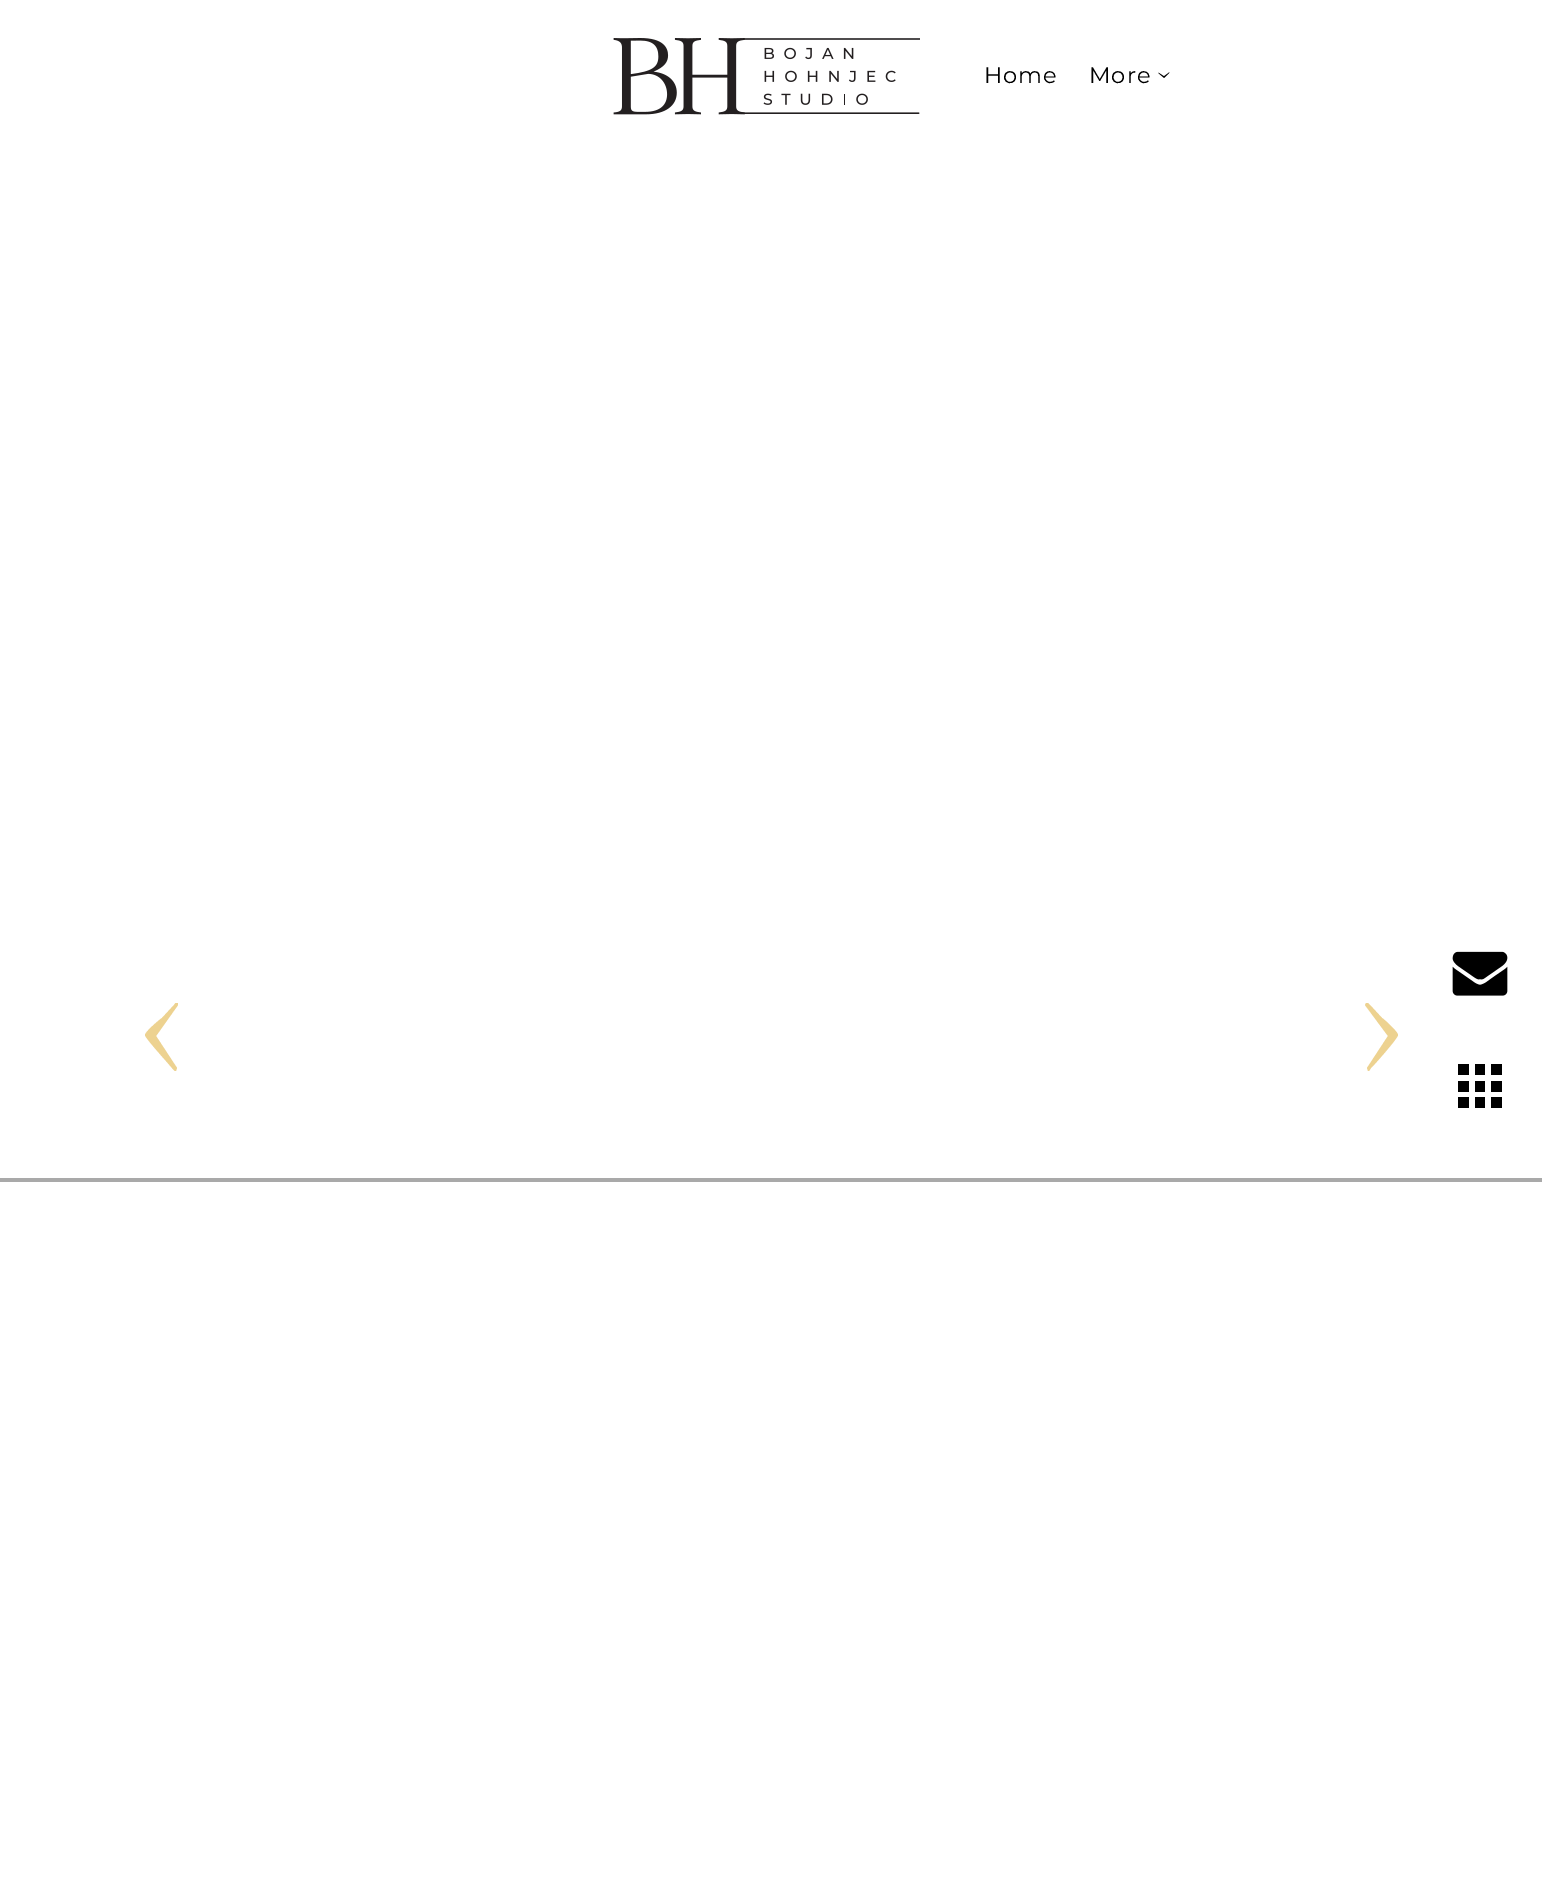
%!PS
<< /PageSize [1542 1884] >> setpagedevice
/rgb { 3 { 255 div 3 1 roll } repeat setrgbcolor } def
/font { [ exch dup neg 0 0 3 -1 roll 0 0 ] selectfont } def
/picture { 5 dict begin { /h /w /y /x /name } { exch def } forall
  gsave x y translate w h scale
  w h 8 [w 0 0 h 0 0] name (r) file false 3 colorimage grestore end } def
0 1884 translate 1 -1 scale
4 setmiterlimit
255 255 255 rgb
0 0 1542 1884 rectfill
(img/1.rgb) 613 38 307 77 picture
(img/2.rgb) 1158 72 12 6 picture
gsave
128 1003 68 68 rectclip
237 210 144 rgb
145 1035 moveto 145 1032 159 1020 162 1018 curveto 174 1005 lineto 175 1004 176 1001 178 1003 curveto 178 1005 lineto 156 1036 lineto 177 1068 lineto 176 1071 lineto 175 1072 173 1069 172 1068 curveto 169 1064 145 1038 145 1035 curveto closepath fill
grestore
gsave
1348 1003 68 68 rectclip
237 210 144 rgb
1398 1035 moveto 1398 1032 1385 1020 1382 1018 curveto 1370 1005 lineto 1368 1004 1368 1001 1366 1003 curveto 1365 1005 lineto 1388 1036 lineto 1367 1068 lineto 1368 1071 lineto 1369 1072 1370 1069 1371 1068 curveto 1375 1064 1398 1038 1398 1035 curveto closepath fill
grestore
(img/3.rgb) 1452 951 56 45 picture
[
  [1458 1064 11 11 0 0 0]
  [1458 1081 11 11 0 0 0]
  [1458 1097 11 11 0 0 0]
  [1475 1064 10 11 0 0 0]
  [1475 1081 10 11 0 0 0]
  [1475 1097 10 11 0 0 0]
  [1491 1064 11 11 0 0 0]
  [1491 1081 11 11 0 0 0]
  [1491 1097 11 11 0 0 0]
  [0 1178 1542 4 169 169 169]
] { aload pop rgb rectfill } forall
/Montserrat-Thin 22.5 font
0 0 0 rgb
984 83 moveto 1 0 (Home) ashow
1089 83 moveto 1 0 (More) ashow
showpage
